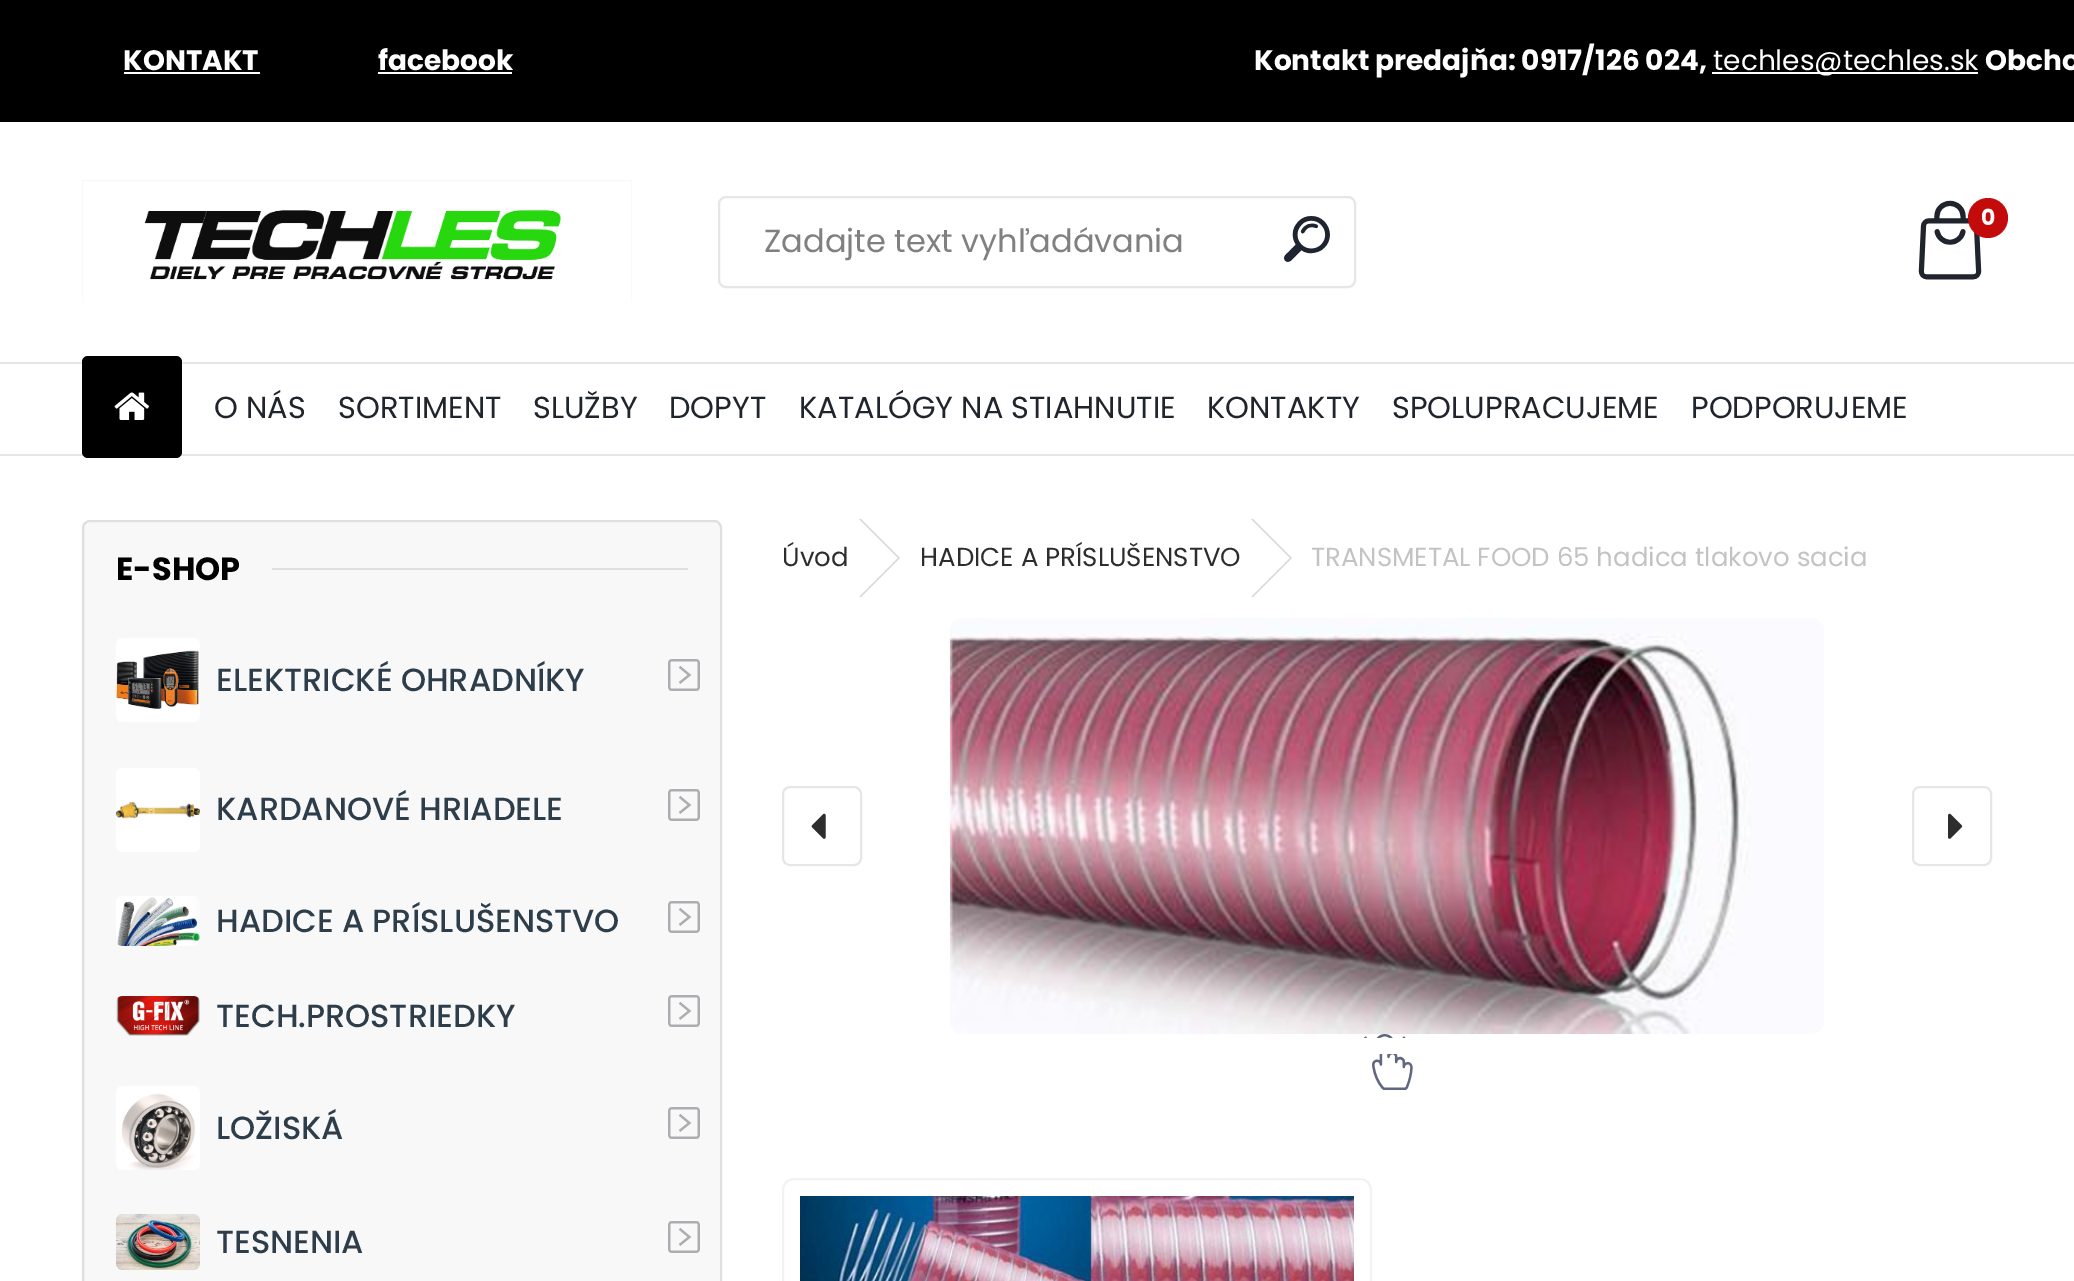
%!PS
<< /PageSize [2074 1281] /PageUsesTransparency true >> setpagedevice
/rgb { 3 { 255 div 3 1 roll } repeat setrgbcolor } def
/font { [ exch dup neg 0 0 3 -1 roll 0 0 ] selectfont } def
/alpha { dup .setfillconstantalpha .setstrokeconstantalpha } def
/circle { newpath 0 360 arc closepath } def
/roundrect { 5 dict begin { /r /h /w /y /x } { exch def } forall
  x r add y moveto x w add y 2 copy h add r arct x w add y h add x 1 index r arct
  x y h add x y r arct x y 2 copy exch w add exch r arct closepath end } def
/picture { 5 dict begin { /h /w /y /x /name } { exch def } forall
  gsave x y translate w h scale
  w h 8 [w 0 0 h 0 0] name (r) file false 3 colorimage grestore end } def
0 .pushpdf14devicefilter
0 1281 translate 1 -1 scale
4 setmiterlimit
255 255 255 rgb
0 0 2074 1281 rectfill
[
  [0 0 2074 122 0 0 0]
  [124 72 136 2 255 255 255]
  [378 72 134 2 255 255 255]
  [1712 72 266 2 255 255 255]
  [0 454 2074 2 230 230 230]
] { aload pop rgb rectfill } forall
(img/1.rgb) 82 180 550 122 picture
(img/2.rgb) 1918 200 64 80 picture
196 11 11 rgb
1988 218 20 circle fill
230 230 230 rgb
2 setlinewidth
719 197 636 90 7 roundrect stroke
(img/3.rgb) 1284 216 46 46 picture
0 362 2074 2 rectfill
0 0 0 rgb
82 356 100 102 6 roundrect fill
(img/4.rgb) 114 392 36 28 picture
215 215 215 rgb
859 519 moveto 861 519 lineto 900 558 lineto 898 558 lineto closepath fill
898 558 moveto 900 558 lineto 861 597 lineto 859 597 lineto closepath fill
1251 519 moveto 1253 519 lineto 1292 558 lineto 1290 558 lineto closepath fill
1290 558 moveto 1292 558 lineto 1253 597 lineto 1251 597 lineto closepath fill
(img/5.rgb) 950 618 874 420 picture
230 230 230 rgb
783 787 78 78 7 roundrect stroke
(img/6.rgb) 811 813 15 26 picture
1913 787 78 78 7 roundrect stroke
(img/7.rgb) 1948 813 15 26 picture
(img/8.rgb) 1372 1054 41 36 picture
242 242 242 rgb
783 1179 588 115 11 roundrect stroke
(img/9.rgb) 800 1196 554 85 picture
248 248 248 rgb
82 520 640 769 8 roundrect fill
0.1 alpha
0 0 0 rgb
83 521 638 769 7 roundrect stroke
1 alpha
223 223 223 rgb
272 568 416 2 rectfill
(img/10.rgb) 116 638 84 84 picture
(img/11.rgb) 668 659 32 32 picture
(img/12.rgb) 116 768 84 84 picture
(img/11.rgb) 668 789 32 32 picture
(img/13.rgb) 116 896 84 50 picture
(img/11.rgb) 668 901 32 32 picture
(img/14.rgb) 116 996 84 40 picture
(img/15.rgb) 668 995 32 32 picture
(img/16.rgb) 116 1086 84 84 picture
(img/11.rgb) 668 1107 32 32 picture
(img/17.rgb) 116 1214 84 56 picture
(img/11.rgb) 668 1221 32 32 picture
/Poppins-Bold 28 font
255 255 255 rgb
[
  [(KONTAKT) 123 70]
  [(facebook) 378 70]
  [(Kontakt predajňa: 0917/126 024,) 1254 70]
] { aload pop moveto show } forall
/Poppins-Regular 28 font
1713 70 moveto (techles@techles.sk) show
/Poppins-Bold 28 font
1985 70 moveto (Obcho) show
/Poppins-Bold 22 font
1981 225 moveto (0) show
/Poppins-Regular 32 font
128 128 128 rgb
764 252 moveto (Zadajte text vyhľadávania) show
/Poppins-Regular 30.4 font
31 36 45 rgb
[
  [(O NÁS) 214 418]
  [(SORTIMENT) 338 418]
  [(SLUŽBY) 533 418]
  [(DOPYT) 669 418]
  [(KATALÓGY NA STIAHNUTIE) 799 418]
  [(KONTAKTY) 1207 418]
  [(SPOLUPRACUJEME) 1392 418]
  [(PODPORUJEME) 1691 418]
] { aload pop moveto show } forall
/Poppins-Regular 26 font
45 45 45 rgb
782 566 moveto (Úvod) show
920 566 moveto (HADICE A PRÍSLUŠENSTVO) show
195 195 195 rgb
1311 566 moveto (TRANSMETAL FOOD 65 hadica tlakovo sacia) show
/Poppins-Bold 32 font
0 0 0 rgb
116 580 moveto (E-SHOP) show
/Poppins-Medium 32 font
45 61 74 rgb
[
  [(ELEKTRICKÉ OHRADNÍKY) 216 691]
  [(KARDANOVÉ HRIADELE) 216 820]
  [(HADICE A PRÍSLUŠENSTVO) 216 932]
  [(TECH.PROSTRIEDKY) 216 1027]
  [(LOŽISKÁ) 216 1139]
  [(TESNENIA) 216 1253]
] { aload pop moveto show } forall
.poppdf14devicefilter showpage
